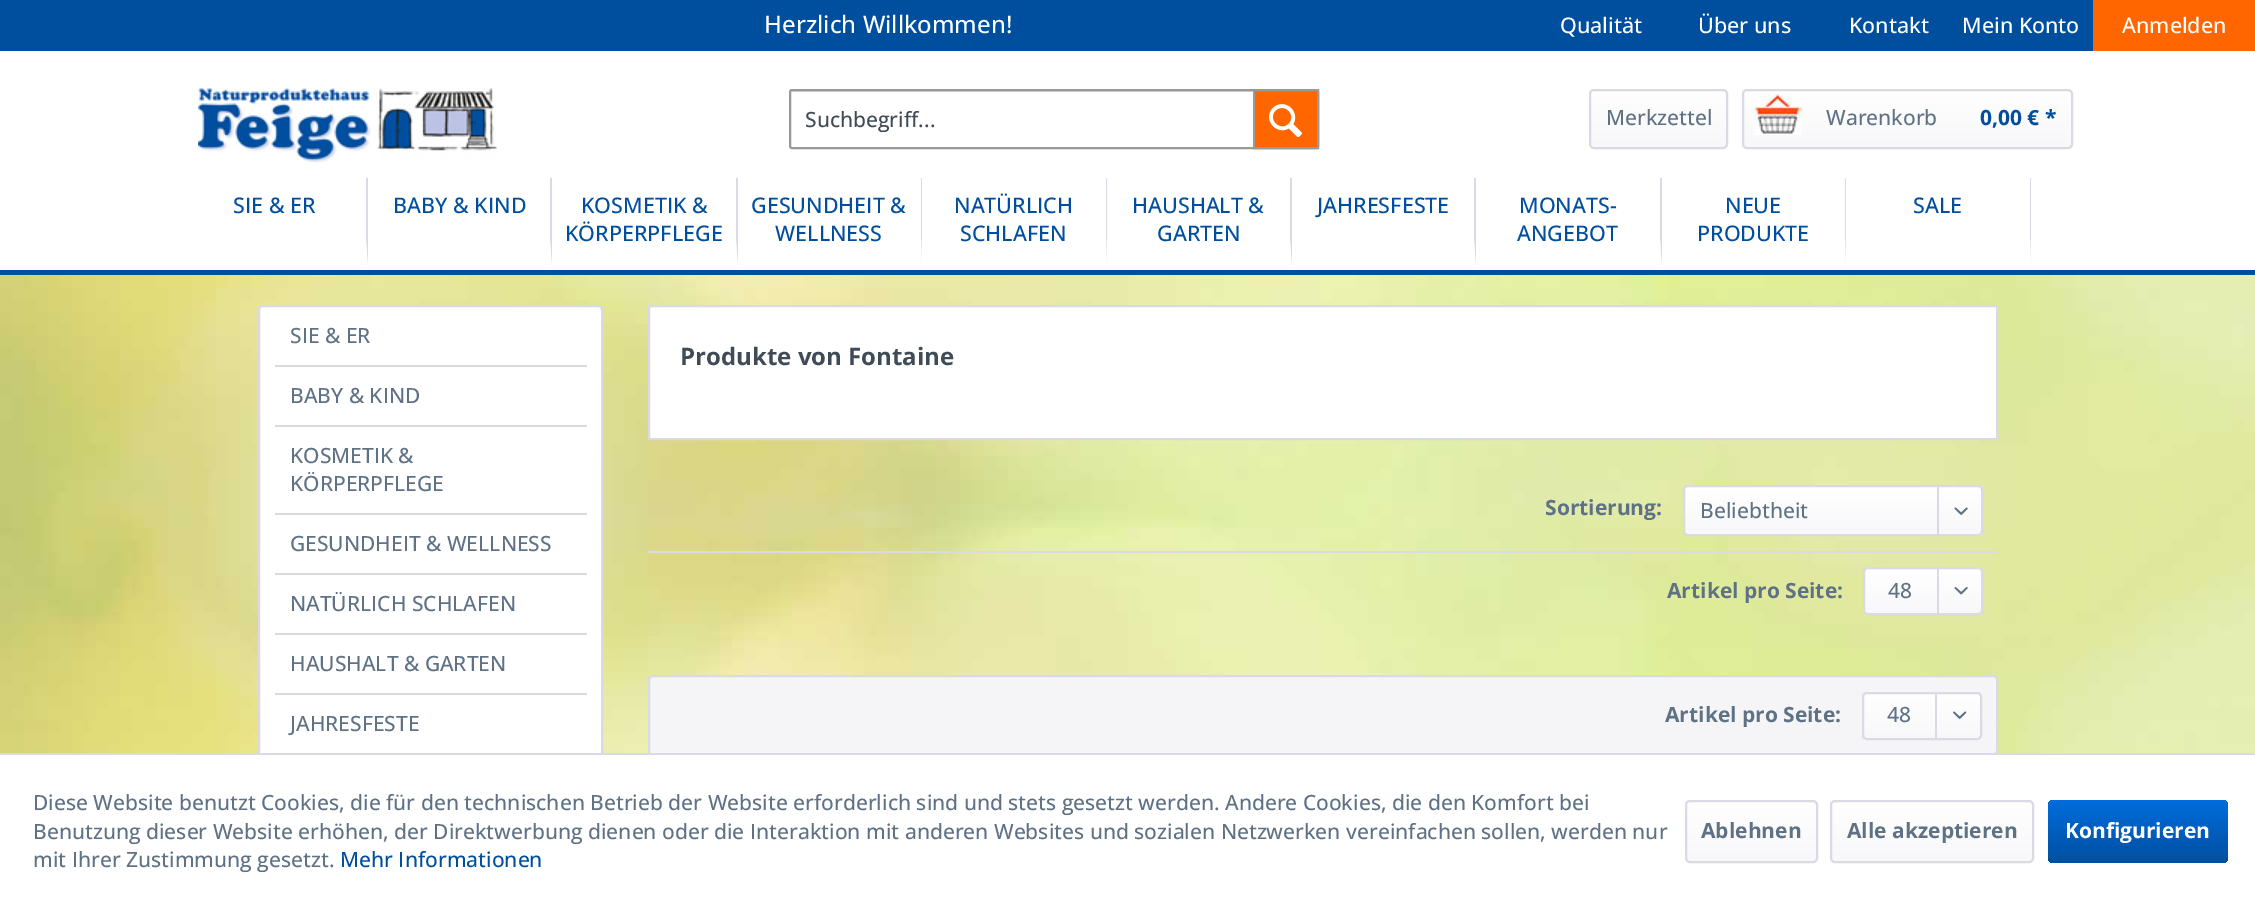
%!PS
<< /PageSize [2255 906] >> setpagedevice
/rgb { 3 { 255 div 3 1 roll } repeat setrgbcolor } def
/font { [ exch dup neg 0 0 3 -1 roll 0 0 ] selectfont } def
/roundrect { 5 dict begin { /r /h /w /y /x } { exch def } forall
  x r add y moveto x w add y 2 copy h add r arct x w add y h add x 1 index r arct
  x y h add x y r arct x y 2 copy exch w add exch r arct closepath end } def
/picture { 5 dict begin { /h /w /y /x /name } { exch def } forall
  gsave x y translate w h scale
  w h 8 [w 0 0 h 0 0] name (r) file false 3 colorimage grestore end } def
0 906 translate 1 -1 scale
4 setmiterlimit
255 255 255 rgb
0 0 2255 906 rectfill
(img/1.rgb) 0 275 2255 478 picture
0 79 159 rgb
0 0 2093 51 rectfill
255 102 0 rgb
2093 0 162 51 rectfill
(img/2.rgb) 198 88 299 75 picture
218 218 229 rgb
792 92 moveto 1316 92 lineto 1317 93 lineto 1317 92 1317 90 1316 90 curveto 792 90 lineto 791 90 791 91 791 92 curveto closepath fill
153 153 153 rgb
2 setlinewidth
790 90 528 58 2 roundrect stroke
255 102 0 rgb
1254 90 moveto 1318 90 lineto 1318 148 lineto 1254 148 lineto closepath gsave fill grestore
153 153 153 rgb
stroke
(img/3.rgb) 1269 104 33 33 picture
gsave 1590 90 137 57 3 roundrect clip newpath
<< /ShadingType 2 /ColorSpace /DeviceRGB /Coords [1658 90 1658 147] /Extend [true true] /Function << /FunctionType 2 /Domain [0 1] /C0 [1 1 1] /C1 [0.973 0.973 0.98] /N 1 >> >> shfill grestore
218 218 229 rgb
1590 90 137 58 4 roundrect stroke
gsave 1743 90 329 57 3 roundrect clip newpath
<< /ShadingType 2 /ColorSpace /DeviceRGB /Coords [1907 90 1907 147] /Extend [true true] /Function << /FunctionType 2 /Domain [0 1] /C0 [1 1 1] /C1 [0.973 0.973 0.98] /N 1 >> >> shfill grestore
1743 90 329 58 4 roundrect stroke
(img/4.rgb) 1755 94 47 41 picture
0 79 159 rgb
0 270 2255 5 rectfill
218 218 229 rgb
368 178 moveto 368 270 lineto 366 240 lineto 366 178 lineto closepath fill
255 255 255 rgb
368 270 moveto 183 270 lineto 183 240 lineto 366 240 lineto closepath fill
218 218 229 rgb
552 178 moveto 552 270 lineto 550 240 lineto 550 178 lineto closepath fill
255 255 255 rgb
552 270 moveto 368 270 lineto 368 240 lineto 550 240 lineto closepath fill
218 218 229 rgb
738 178 moveto 738 270 lineto 736 240 lineto 736 178 lineto closepath fill
255 255 255 rgb
738 270 moveto 552 270 lineto 552 240 lineto 736 240 lineto closepath fill
218 218 229 rgb
922 178 moveto 922 270 lineto 921 240 lineto 921 178 lineto closepath fill
255 255 255 rgb
922 270 moveto 738 270 lineto 738 240 lineto 921 240 lineto closepath fill
218 218 229 rgb
1107 178 moveto 1107 270 lineto 1106 240 lineto 1106 178 lineto closepath fill
255 255 255 rgb
1107 270 moveto 922 270 lineto 922 240 lineto 1106 240 lineto closepath fill
218 218 229 rgb
1292 178 moveto 1292 270 lineto 1290 240 lineto 1290 178 lineto closepath fill
255 255 255 rgb
1292 270 moveto 1107 270 lineto 1107 240 lineto 1290 240 lineto closepath fill
218 218 229 rgb
1476 178 moveto 1476 270 lineto 1474 240 lineto 1474 178 lineto closepath fill
255 255 255 rgb
1476 270 moveto 1292 270 lineto 1292 240 lineto 1474 240 lineto closepath fill
218 218 229 rgb
1662 178 moveto 1662 270 lineto 1660 240 lineto 1660 178 lineto closepath fill
255 255 255 rgb
1662 270 moveto 1476 270 lineto 1476 240 lineto 1660 240 lineto closepath fill
218 218 229 rgb
1846 178 moveto 1846 270 lineto 1845 240 lineto 1845 178 lineto closepath fill
255 255 255 rgb
1846 270 moveto 1662 270 lineto 1662 240 lineto 1845 240 lineto closepath fill
218 218 229 rgb
2031 178 moveto 2031 270 lineto 2030 240 lineto 2030 178 lineto closepath fill
255 255 255 rgb
2031 270 moveto 1846 270 lineto 1846 240 lineto 2030 240 lineto closepath fill
260 306 342 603 3 roundrect fill
218 218 229 rgb
259 306 343 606 4 roundrect stroke
[
  [275 365 312 2 218 218 229]
  [275 425 312 2 218 218 229]
  [275 513 312 2 218 218 229]
  [275 573 312 2 218 218 229]
  [275 633 312 2 218 218 229]
  [275 693 312 2 218 218 229]
] { aload pop rgb rectfill } forall
255 255 255 rgb
649 306 moveto 1997 306 lineto 1997 439 lineto 649 439 lineto closepath gsave fill grestore
218 218 229 rgb
stroke
gsave 1685 486 297 48 3 roundrect clip newpath
<< /ShadingType 2 /ColorSpace /DeviceRGB /Coords [1833 486 1833 534] /Extend [true true] /Function << /FunctionType 2 /Domain [0 1] /C0 [1 1 1] /C1 [0.973 0.973 0.98] /N 1 >> >> shfill grestore
1684 486 298 49 4 roundrect stroke
1937 486 2 50 rectfill
(img/5.rgb) 1954 507 14 8 picture
648 551 1350 2 rectfill
gsave 1865 569 117 45 3 roundrect clip newpath
<< /ShadingType 2 /ColorSpace /DeviceRGB /Coords [1923 569 1923 614] /Extend [true true] /Function << /FunctionType 2 /Domain [0 1] /C0 [1 1 1] /C1 [0.973 0.973 0.98] /N 1 >> >> shfill grestore
1864 568 118 46 4 roundrect stroke
1937 569 2 46 rectfill
(img/6.rgb) 1954 587 14 8 picture
245 245 248 rgb
649 676 1348 79 4 roundrect gsave fill grestore
218 218 229 rgb
stroke
gsave 1863 693 117 45 3 roundrect clip newpath
<< /ShadingType 2 /ColorSpace /DeviceRGB /Coords [1922 693 1922 738] /Extend [true true] /Function << /FunctionType 2 /Domain [0 1] /C0 [1 1 1] /C1 [0.973 0.973 0.98] /N 1 >> >> shfill grestore
1863 693 118 46 4 roundrect stroke
1935 693 2 47 rectfill
(img/7.rgb) 1953 711 14 8 picture
255 255 255 rgb
258 755 1738 151 rectfill
218 218 229 rgb
0 753 2255 2 rectfill
gsave 1686 801 131 60 3 roundrect clip newpath
<< /ShadingType 2 /ColorSpace /DeviceRGB /Coords [1751 801 1751 861] /Extend [true true] /Function << /FunctionType 2 /Domain [0 1] /C0 [1 1 1] /C1 [0.973 0.973 0.98] /N 1 >> >> shfill grestore
1686 801 131 61 4 roundrect stroke
gsave 1832 801 201 60 3 roundrect clip newpath
<< /ShadingType 2 /ColorSpace /DeviceRGB /Coords [1932 801 1932 861] /Extend [true true] /Function << /FunctionType 2 /Domain [0 1] /C0 [1 1 1] /C1 [0.973 0.973 0.98] /N 1 >> >> shfill grestore
1831 801 202 61 4 roundrect stroke
gsave 2048 800 180 63 5 roundrect clip newpath
<< /ShadingType 2 /ColorSpace /DeviceRGB /Coords [2138 800 2138 863] /Extend [true true] /Function << /FunctionType 2 /Domain [0 1] /C0 [0 0.427 0.863] /C1 [0 0.31 0.624] /N 1 >> >> shfill grestore
/OpenSans-Medium 24 font
255 255 255 rgb
764 33 moveto (Herzlich Willkommen!) show
/OpenSans-Medium 21.5 font
[
  [(Qualität) 1560 33]
  [(Über uns) 1698 33]
  [(Kontakt) 1849 33]
  [(Mein Konto) 1962 33]
  [(Anmelden) 2122 33]
] { aload pop moveto show } forall
/OpenSans-Medium 21 font
63 76 88 rgb
805 127 moveto (Suchbegriff...) show
95 114 133 rgb
1606 125 moveto (Merkzettel) show
1826 125 moveto (Warenkorb) show
/OpenSans-Bold 21 font
0 79 159 rgb
1980 125 moveto (0,00 € *) show
/OpenSans-Medium 21.5 font
[
  [(SIE & ER) 233 213]
  [(BABY & KIND) 393 213]
  [(KOSMETIK &) 581 213]
  [(KÖRPERPFLEGE) 565 241]
  [(GESUNDHEIT &) 751 213]
  [(WELLNESS) 775 241]
  [(NATÜRLICH) 954 213]
  [(SCHLAFEN) 960 241]
  [(HAUSHALT &) 1132 213]
  [(GARTEN) 1157 241]
  [(JAHRESFESTE) 1317 213]
  [(MONATS-) 1519 213]
  [(ANGEBOT) 1517 241]
  [(NEUE) 1725 213]
  [(PRODUKTE) 1697 241]
  [(SALE) 1913 213]
] { aload pop moveto show } forall
/OpenSans-Medium 21 font
95 114 133 rgb
[
  [(SIE & ER) 290 343]
  [(BABY & KIND) 290 403]
  [(KOSMETIK &) 290 463]
  [(KÖRPERPFLEGE) 290 491]
  [(GESUNDHEIT & WELLNESS) 290 551]
  [(NATÜRLICH SCHLAFEN) 290 611]
  [(HAUSHALT & GARTEN) 290 671]
  [(JAHRESFESTE) 290 731]
] { aload pop moveto show } forall
/OpenSans-Bold 24 font
63 76 88 rgb
680 365 moveto (Produkte von Fontaine) show
/OpenSans-Bold 21 font
95 114 133 rgb
1545 515 moveto (Sortierung:) show
/OpenSans-Medium 21 font
1700 518 moveto (Beliebtheit) show
/OpenSans-Bold 21 font
1667 598 moveto (Artikel pro Seite:) show
/OpenSans-Medium 21 font
1888 598 moveto (48) show
/OpenSans-Bold 21 font
1665 722 moveto (Artikel pro Seite:) show
/OpenSans-Medium 21 font
[
  [(48) 1887 722]
  [(Diese Website benutzt Cookies, die für den technischen Betrieb der Website erforderlich sind und stets gesetzt werden. Andere Cookies, die den Komfort bei) 33 810]
  [(Benutzung dieser Website erhöhen, der Direktwerbung dienen oder die Interaktion mit anderen Websites und sozialen Netzwerken vereinfachen sollen, werden nur) 33 839]
  [(mit Ihrer Zustimmung gesetzt.) 33 867]
] { aload pop moveto show } forall
0 79 159 rgb
340 867 moveto (Mehr Informationen) show
/OpenSans-Bold 21 font
95 114 133 rgb
1701 838 moveto (Ablehnen) show
1847 838 moveto (Alle akzeptieren) show
255 255 255 rgb
2065 838 moveto (Konfigurieren) show
showpage
